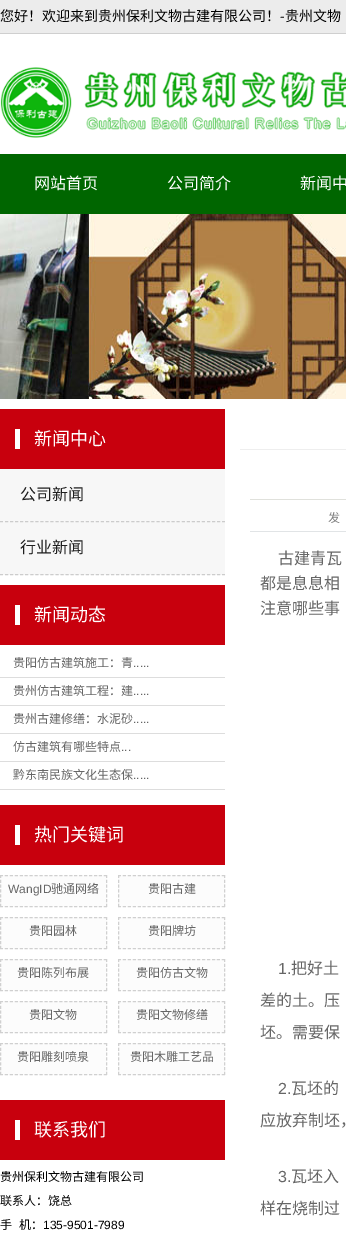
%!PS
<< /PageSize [346 1236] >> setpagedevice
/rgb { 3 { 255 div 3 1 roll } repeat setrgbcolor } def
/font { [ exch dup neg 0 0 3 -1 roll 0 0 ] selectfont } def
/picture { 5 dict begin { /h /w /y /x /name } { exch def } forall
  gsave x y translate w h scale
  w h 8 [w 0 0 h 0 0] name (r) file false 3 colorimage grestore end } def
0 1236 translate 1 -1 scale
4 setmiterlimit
255 255 255 rgb
0 0 346 1236 rectfill
236 236 236 rgb
0 0 346 33 rectfill
207 207 207 rgb
0 33 346 1 rectfill
(img/1.rgb) 0 67 346 71 picture
0 102 0 rgb
0 154 346 60 rectfill
(img/2.rgb) 0 214 346 185 picture
[
  [0 409 225 60 200 0 13]
  [15 429 5 20 255 255 255]
  [0 469 225 106 247 247 247]
] { aload pop rgb rectfill } forall
204 204 204 rgb
[3 2.05] 0 setdash
0 521.5 moveto 225 521.5 lineto stroke
0 574.5 moveto 225 574.5 lineto stroke
[
  [0 585 225 60 200 0 13]
  [15 605 5 20 255 255 255]
  [0 677 225 1 221 221 221]
  [0 705 225 1 221 221 221]
  [0 733 225 1 221 221 221]
  [0 761 225 1 221 221 221]
  [0 789 225 1 221 221 221]
  [0 805 225 60 200 0 13]
  [15 825 5 20 255 255 255]
  [0 875 107 32 252 252 252]
] { aload pop rgb rectfill } forall
208 208 208 rgb
[3 1.95] 0 setdash
0 875.5 moveto 107 875.5 lineto stroke
[3 1.83] 0 setdash
106.5 875 moveto 106.5 907 lineto stroke
[3 1.95] 0 setdash
0 906.5 moveto 107 906.5 lineto stroke
[3 1.83] 0 setdash
0.5 875 moveto 0.5 907 lineto stroke
252 252 252 rgb
118 875 107 32 rectfill
208 208 208 rgb
[3 1.95] 0 setdash
118 875.5 moveto 225 875.5 lineto stroke
[3 1.83] 0 setdash
224.5 875 moveto 224.5 907 lineto stroke
[3 1.95] 0 setdash
118 906.5 moveto 225 906.5 lineto stroke
[3 1.83] 0 setdash
118.5 875 moveto 118.5 907 lineto stroke
252 252 252 rgb
0 917 107 32 rectfill
208 208 208 rgb
[3 1.95] 0 setdash
0 917.5 moveto 107 917.5 lineto stroke
[3 1.83] 0 setdash
106.5 917 moveto 106.5 949 lineto stroke
[3 1.95] 0 setdash
0 948.5 moveto 107 948.5 lineto stroke
[3 1.83] 0 setdash
0.5 917 moveto 0.5 949 lineto stroke
252 252 252 rgb
118 917 107 32 rectfill
208 208 208 rgb
[3 1.95] 0 setdash
118 917.5 moveto 225 917.5 lineto stroke
[3 1.83] 0 setdash
224.5 917 moveto 224.5 949 lineto stroke
[3 1.95] 0 setdash
118 948.5 moveto 225 948.5 lineto stroke
[3 1.83] 0 setdash
118.5 917 moveto 118.5 949 lineto stroke
252 252 252 rgb
0 959 107 32 rectfill
208 208 208 rgb
[3 1.95] 0 setdash
0 959.5 moveto 107 959.5 lineto stroke
[3 1.83] 0 setdash
106.5 959 moveto 106.5 991 lineto stroke
[3 1.95] 0 setdash
0 990.5 moveto 107 990.5 lineto stroke
[3 1.83] 0 setdash
0.5 959 moveto 0.5 991 lineto stroke
252 252 252 rgb
118 959 107 32 rectfill
208 208 208 rgb
[3 1.95] 0 setdash
118 959.5 moveto 225 959.5 lineto stroke
[3 1.83] 0 setdash
224.5 959 moveto 224.5 991 lineto stroke
[3 1.95] 0 setdash
118 990.5 moveto 225 990.5 lineto stroke
[3 1.83] 0 setdash
118.5 959 moveto 118.5 991 lineto stroke
252 252 252 rgb
0 1001 107 32 rectfill
208 208 208 rgb
[3 1.95] 0 setdash
0 1001.5 moveto 107 1001.5 lineto stroke
[3 1.83] 0 setdash
106.5 1001 moveto 106.5 1033 lineto stroke
[3 1.95] 0 setdash
0 1032.5 moveto 107 1032.5 lineto stroke
[3 1.83] 0 setdash
0.5 1001 moveto 0.5 1033 lineto stroke
252 252 252 rgb
118 1001 107 32 rectfill
208 208 208 rgb
[3 1.95] 0 setdash
118 1001.5 moveto 225 1001.5 lineto stroke
[3 1.83] 0 setdash
224.5 1001 moveto 224.5 1033 lineto stroke
[3 1.95] 0 setdash
118 1032.5 moveto 225 1032.5 lineto stroke
[3 1.83] 0 setdash
118.5 1001 moveto 118.5 1033 lineto stroke
252 252 252 rgb
0 1043 107 32 rectfill
208 208 208 rgb
[3 1.95] 0 setdash
0 1043.5 moveto 107 1043.5 lineto stroke
[3 1.83] 0 setdash
106.5 1043 moveto 106.5 1075 lineto stroke
[3 1.95] 0 setdash
0 1074.5 moveto 107 1074.5 lineto stroke
[3 1.83] 0 setdash
0.5 1043 moveto 0.5 1075 lineto stroke
252 252 252 rgb
118 1043 107 32 rectfill
208 208 208 rgb
[3 1.95] 0 setdash
118 1043.5 moveto 225 1043.5 lineto stroke
[3 1.83] 0 setdash
224.5 1043 moveto 224.5 1075 lineto stroke
[3 1.95] 0 setdash
118 1074.5 moveto 225 1074.5 lineto stroke
[3 1.83] 0 setdash
118.5 1043 moveto 118.5 1075 lineto stroke
[
  [0 1100 225 60 200 0 13]
  [15 1120 5 20 255 255 255]
  [240 449 106 1 238 238 238]
  [250 499 96 1 224 225 220]
  [250 531 96 1 225 228 230]
] { aload pop rgb rectfill } forall
/NotoSansCJKSC-Regular 14 font
0 0 0 rgb
0 21 moveto (您好！欢迎来到贵州保利文物古建有限公司！) show
/LiberationSans-Regular 14 font
280 21 moveto (-) show
/NotoSansCJKSC-Regular 14 font
285 21 moveto 1 0 32 (贵州文物) widthshow
/NotoSansCJKSC-Regular 16 font
255 255 255 rgb
[
  [(网站首页) 34 189]
  [(公司简介) 167 189]
  [(新闻中) 300 189]
] { aload pop moveto show } forall
/NotoSansCJKSC-Regular 18 font
34 445 moveto (新闻中心) show
/NotoSansCJKSC-Regular 16 font
31 31 31 rgb
20 500 moveto (公司新闻) show
20 553 moveto (行业新闻) show
/NotoSansCJKSC-Regular 18 font
255 255 255 rgb
34 621 moveto (新闻动态) show
/NotoSansCJKSC-Regular 12 font
102 102 102 rgb
13 667 moveto (贵阳仿古建筑施工：青) show
/LiberationSans-Regular 12 font
133 667 moveto (.....) show
/NotoSansCJKSC-Regular 12 font
13 695 moveto (贵州仿古建筑工程：建) show
/LiberationSans-Regular 12 font
133 695 moveto (.....) show
/NotoSansCJKSC-Regular 12 font
13 723 moveto (贵州古建修缮：水泥砂) show
/LiberationSans-Regular 12 font
133 723 moveto (.....) show
/NotoSansCJKSC-Regular 12 font
13 751 moveto (仿古建筑有哪些特点) show
/LiberationSans-Regular 12 font
121 751 moveto (...) show
/NotoSansCJKSC-Regular 12 font
13 779 moveto (黔东南民族文化生态保) show
/LiberationSans-Regular 12 font
133 779 moveto (.....) show
/NotoSansCJKSC-Regular 18 font
255 255 255 rgb
34 841 moveto (热门关键词) show
/LiberationSans-Regular 12 font
102 102 102 rgb
8 893 moveto (WangID) show
/NotoSansCJKSC-Regular 12 font
[
  [(驰通网络) 51 893]
  [(贵阳古建) 148 893]
  [(贵阳园林) 29 935]
  [(贵阳牌坊) 148 935]
  [(贵阳陈列布展) 17 977]
  [(贵阳仿古文物) 136 977]
  [(贵阳文物) 29 1019]
  [(贵阳文物修缮) 136 1019]
  [(贵阳雕刻喷泉) 17 1061]
  [(贵阳木雕工艺品) 130 1061]
] { aload pop moveto show } forall
/NotoSansCJKSC-Regular 18 font
255 255 255 rgb
34 1136 moveto (联系我们) show
/NotoSansCJKSC-Regular 12 font
0 0 0 rgb
[
  [(贵州保利文物古建有限公司) 0 1181]
  [(联系人：饶总) 0 1205]
  [(手) 0 1229]
  [(机：) 19 1229]
] { aload pop moveto show } forall
/LiberationSans-Regular 12 font
43 1229 moveto (135-9501-7989) show
/NotoSansCJKSC-Regular 12 font
128 128 128 rgb
328 522 moveto (发) show
/NotoSansCJKSC-Regular 16 font
102 102 102 rgb
[
  [(古建青瓦) 278 564]
  [(都是息息相) 260 589]
  [(注意哪些事) 260 614]
] { aload pop moveto show } forall
/LiberationSans-Regular 16 font
278 974 moveto (1.) show
/NotoSansCJKSC-Regular 16 font
[
  [(把好土) 291 974]
  [(差的土。压) 260 1006]
  [(坯。需要保) 260 1038]
] { aload pop moveto show } forall
/LiberationSans-Regular 16 font
278 1094 moveto (2.) show
/NotoSansCJKSC-Regular 16 font
291 1094 moveto (瓦坯的) show
260 1126 moveto (应放弃制坯，) show
/LiberationSans-Regular 16 font
278 1182 moveto (3.) show
/NotoSansCJKSC-Regular 16 font
291 1182 moveto (瓦坯入) show
260 1214 moveto (样在烧制过) show
showpage
